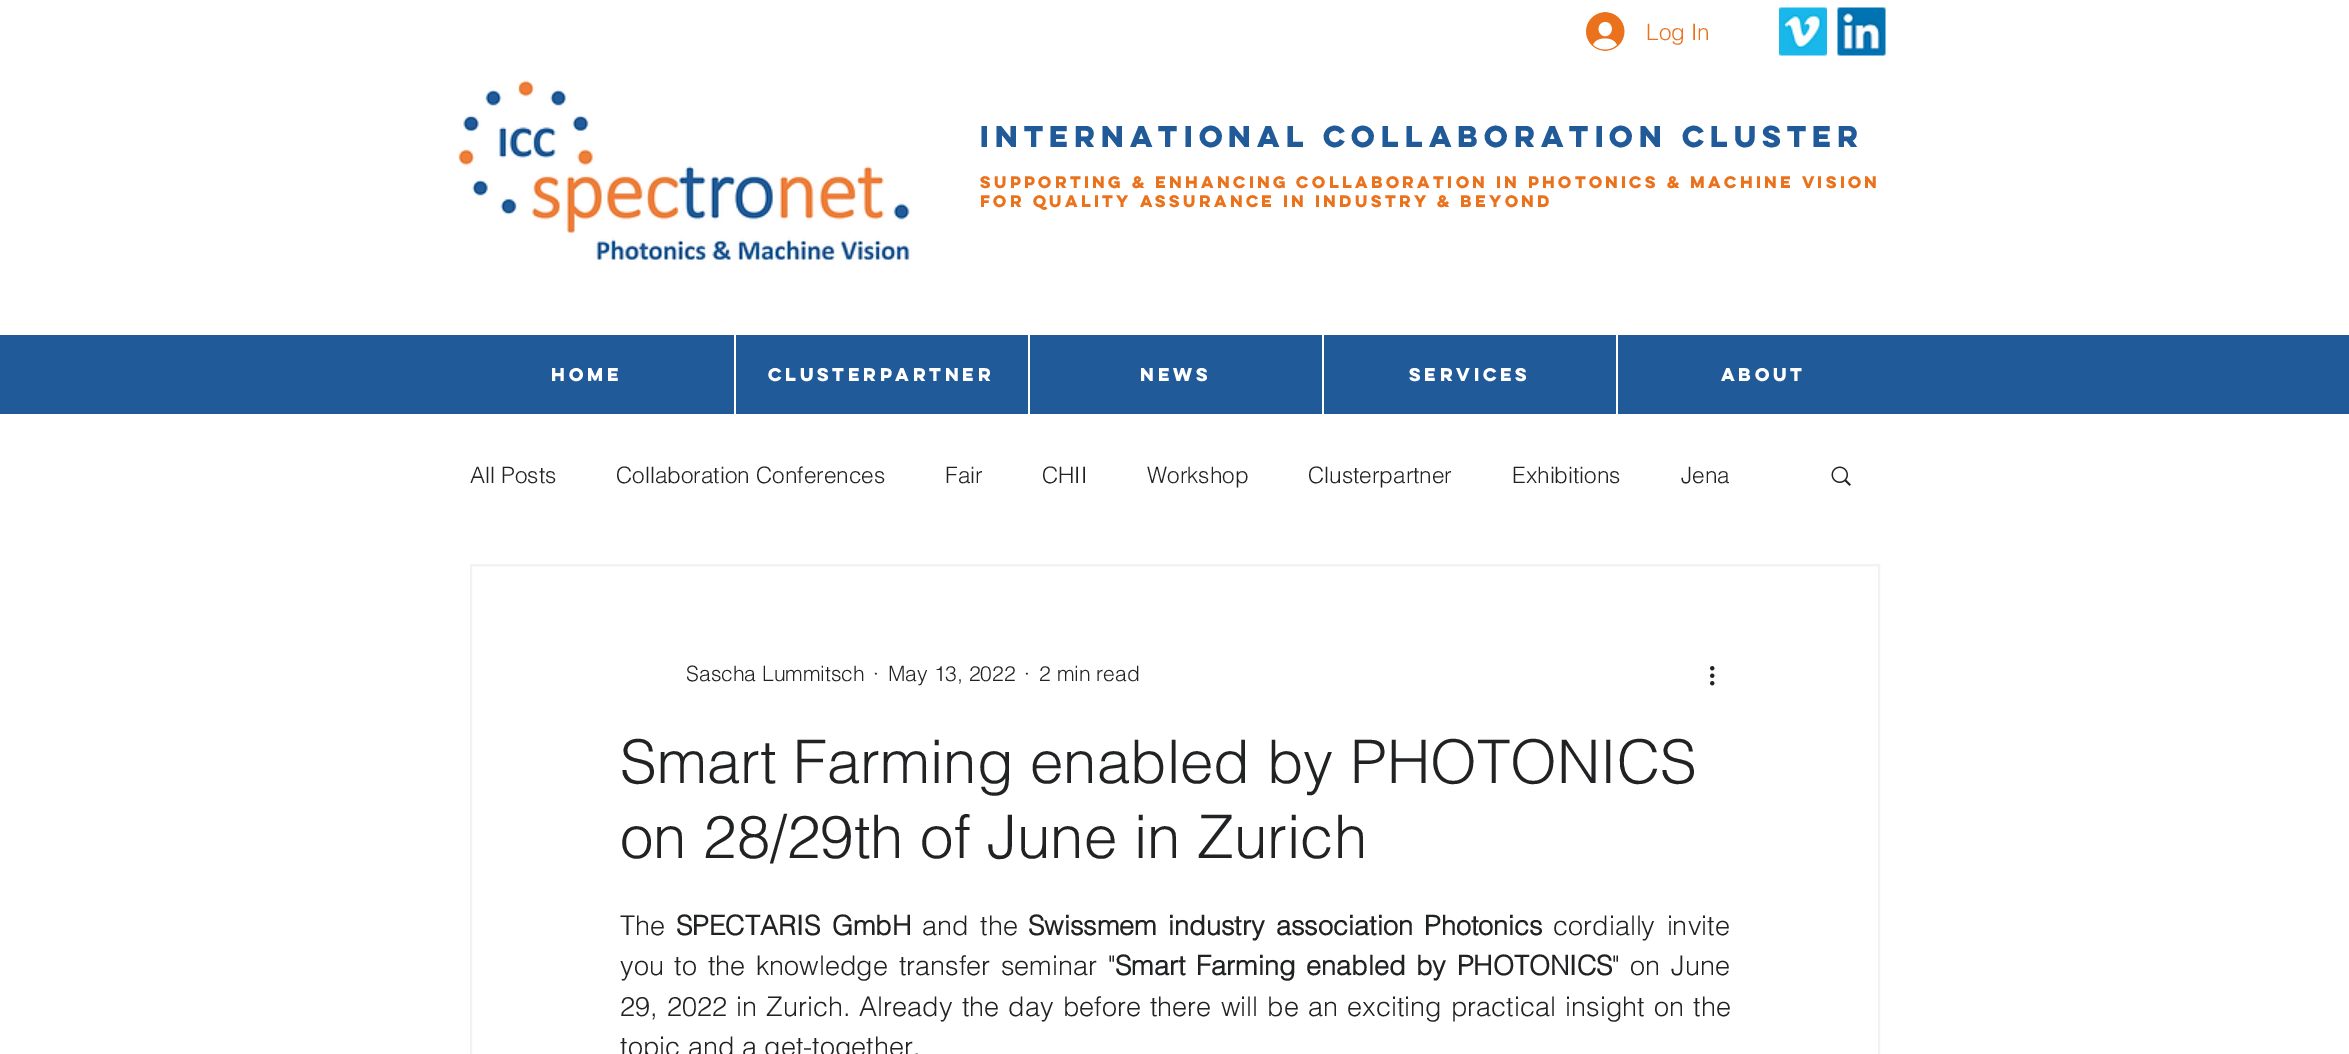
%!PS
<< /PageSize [2349 1054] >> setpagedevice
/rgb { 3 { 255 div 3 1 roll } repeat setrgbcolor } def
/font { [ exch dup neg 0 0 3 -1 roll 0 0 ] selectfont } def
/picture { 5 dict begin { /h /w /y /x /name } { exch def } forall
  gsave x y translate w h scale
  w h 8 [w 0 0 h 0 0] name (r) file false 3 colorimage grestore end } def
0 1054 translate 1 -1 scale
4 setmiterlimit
255 255 255 rgb
0 0 2349 1054 rectfill
(img/1.rgb) 1586 12 39 39 picture
(img/2.rgb) 1779 7 48 49 picture
(img/3.rgb) 1837 7 49 49 picture
(img/4.rgb) 458 80 454 182 picture
[
  [0 335 2349 79 33 90 153]
  [734 335 2 79 255 255 255]
  [1028 335 2 79 255 255 255]
  [1322 335 2 79 255 255 255]
  [1616 335 2 79 255 255 255]
] { aload pop rgb rectfill } forall
(img/5.rgb) 1831 466 20 20 picture
242 242 242 rgb
2 setlinewidth
471 565 1408 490 rectstroke
(img/6.rgb) 1710 666 5 20 picture
/helvetica-Light 22.5 font
235 114 28 rgb
1646 40 moveto (Log In) show
/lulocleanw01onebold-Bold 27 font
33 90 153 rgb
980 147 moveto (International Collaboration Cluster) show
/lulocleanw01onebold-Bold 15 font
235 114 28 rgb
980 188 moveto (Supporting & Enhancing Collaboration in Photonics & Machine Vision) show
980 207 moveto (for Quality Assurance in Industry & Beyond) show
/lulocleanw01onebold-Bold 16.5 font
255 255 255 rgb
[
  [(Home) 551 381]
  [(Clusterpartner) 768 381]
  [(News) 1140 381]
  [(Services) 1409 381]
  [(About) 1721 381]
] { aload pop moveto show } forall
/helvetica-Light 22.5 font
33 34 35 rgb
[
  [(All Posts) 470 483]
  [(Collaboration Conferences) 616 483]
  [(Fair) 945 483]
  [(CHII) 1042 483]
  [(Workshop) 1147 483]
  [(Clusterpartner) 1308 483]
  [(Exhibitions) 1512 483]
  [(Jena) 1681 483]
] { aload pop moveto show } forall
/helvetica-Light 21 font
[
  [(Sascha Lummitsch) 686 681]
  [(·) 873 681]
  [(May 13, 2022) 888 681]
  [(·) 1024 681]
  [(2 min read) 1039 681]
] { aload pop moveto show } forall
/helvetica-Light 60 font
620 783 moveto (Smart Farming enabled by PHOTONICS) show
620 858 moveto (on 28/29th of June in Zurich) show
/helvetica-Light 27 font
620 935 moveto (The) show
/helvetica-Bold 27 font
676 935 moveto 4 0 32 (SPECTARIS GmbH) widthshow
/helvetica-Light 27 font
922 935 moveto 4 0 32 (and the) widthshow
/helvetica-Bold 27 font
1028 935 moveto 4 0 32 (Swissmem industry association Photonics) widthshow
/helvetica-Light 27 font
1553 935 moveto 4 0 32 (cordially invite) widthshow
620 975 moveto 3.25 0 32 (you to the knowledge transfer seminar ") widthshow
/helvetica-Bold 27 font
1115 975 moveto 3.25 0 32 (Smart Farming enabled by PHOTONICS) widthshow
/helvetica-Light 27 font
1612 975 moveto 3.25 0 32 (" on June) widthshow
620 1016 moveto 1.7 0 32 (29, 2022 in Zurich. Already the day before there will be an exciting practical insight on the) widthshow
620 1056 moveto (topic and a get-together.) show
showpage
